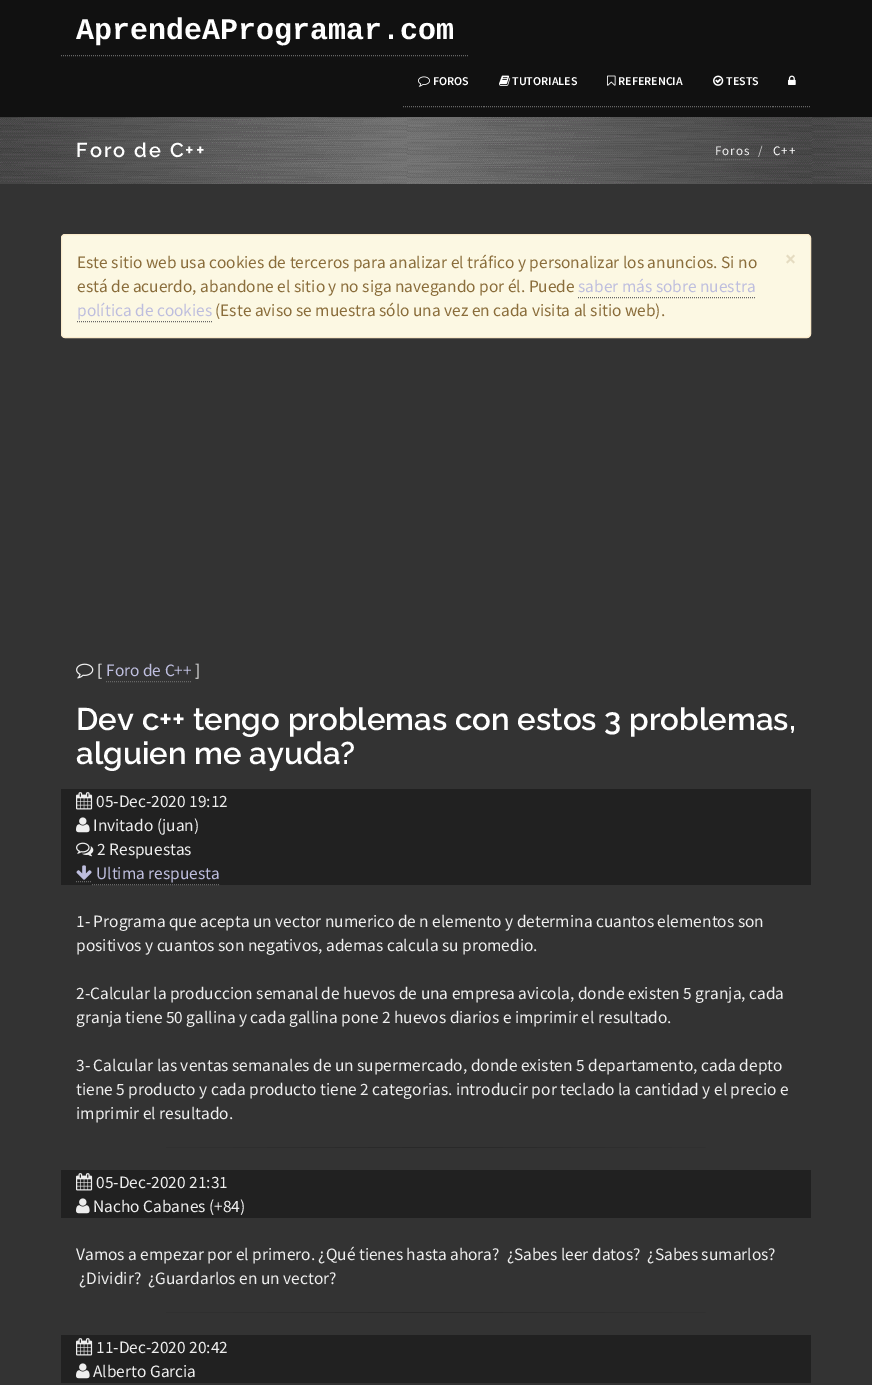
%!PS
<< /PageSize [872 1385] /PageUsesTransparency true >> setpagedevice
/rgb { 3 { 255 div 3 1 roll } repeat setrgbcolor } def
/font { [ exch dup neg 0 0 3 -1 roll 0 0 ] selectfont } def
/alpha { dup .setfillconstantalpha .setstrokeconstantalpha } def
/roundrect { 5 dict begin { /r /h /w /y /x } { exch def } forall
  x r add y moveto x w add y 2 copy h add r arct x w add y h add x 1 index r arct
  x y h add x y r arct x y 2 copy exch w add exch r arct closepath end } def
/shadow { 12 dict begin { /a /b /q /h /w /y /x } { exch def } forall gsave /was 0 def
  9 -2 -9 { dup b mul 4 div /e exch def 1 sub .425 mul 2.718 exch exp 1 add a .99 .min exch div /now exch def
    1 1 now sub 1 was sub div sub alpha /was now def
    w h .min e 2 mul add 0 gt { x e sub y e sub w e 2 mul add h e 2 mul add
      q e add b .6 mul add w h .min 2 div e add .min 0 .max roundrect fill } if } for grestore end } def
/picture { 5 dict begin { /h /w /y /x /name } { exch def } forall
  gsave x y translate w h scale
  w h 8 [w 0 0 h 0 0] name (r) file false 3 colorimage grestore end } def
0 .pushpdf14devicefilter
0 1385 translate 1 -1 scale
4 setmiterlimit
51 51 51 rgb
0 0 872 1385 rectfill
(img/6.rgb) 0 117 872 67 picture
0 0 0 rgb
-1 -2 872 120 0 0.5 0.1 shadow
17 17 17 rgb
0 0 872 117 rectfill
102 102 102 rgb
[1 1] 0 setdash
61 55.5 moveto 469 55.5 lineto stroke
403 106.5 moveto 484 106.5 lineto stroke
(img/1.rgb) 418 76 12 11 picture
484 106.5 moveto 592 106.5 lineto stroke
(img/2.rgb) 499 75 12 11 picture
592 106.5 moveto 698 106.5 lineto stroke
(img/3.rgb) 607 75 9 11 picture
698 106.5 moveto 773 106.5 lineto stroke
(img/4.rgb) 713 75 11 11 picture
773 106.5 moveto 811 106.5 lineto stroke
(img/5.rgb) 788 75 8 10 picture
715 159.5 moveto 750 159.5 lineto stroke
252 248 227 rgb
61.5 234.5 749 103 3.5 roundrect gsave fill grestore
250 235 204 rgb
[] 0 setdash
stroke
102 102 102 rgb
[1 1] 0 setdash
578 297.5 moveto 755 297.5 lineto stroke
77 321.5 moveto 212 321.5 lineto stroke
(img/7.rgb) 76 663 18 16 picture
106 681.5 moveto 191 681.5 lineto stroke
33 33 33 rgb
61 789 750 96 rectfill
(img/8.rgb) 76 792 17 18 picture
(img/9.rgb) 76 817 14 16 picture
(img/10.rgb) 76 842 18 15 picture
102 102 102 rgb
76 881.5 moveto 92 881.5 lineto stroke
[] 0 setdash
92 884.5 moveto 93 884.5 lineto 94 884.5 moveto 95 884.5 lineto stroke
[1 1] 0 setdash
96 884.5 moveto 219 884.5 lineto stroke
(img/11.rgb) 76 865 16 15 picture
gsave 166 1147 moveto 706 1147 lineto 706 1148 lineto 166 1148 lineto closepath clip newpath
<< /ShadingType 2 /ColorSpace /DeviceRGB /Coords [76 1148 796 1148] /Extend [true true] /Function << /FunctionType 3 /Domain [0 1] /Functions [<< /FunctionType 2 /Domain [0 1] /C0 [0.2 0.2 0.2] /C1 [0.161 0.161 0.161] /N 1 >> << /FunctionType 2 /Domain [0 1] /C0 [0.161 0.161 0.161] /C1 [0.2 0.2 0.2] /N 1 >>] /Bounds [0.5] /Encode [0 1 0 1] >> >> shfill grestore
33 33 33 rgb
61 1170 750 48 rectfill
(img/8.rgb) 76 1173 17 18 picture
(img/9.rgb) 76 1198 14 16 picture
gsave 166 1312 moveto 706 1312 lineto 706 1313 lineto 166 1313 lineto closepath clip newpath
<< /ShadingType 2 /ColorSpace /DeviceRGB /Coords [76 1313 796 1313] /Extend [true true] /Function << /FunctionType 3 /Domain [0 1] /Functions [<< /FunctionType 2 /Domain [0 1] /C0 [0.2 0.2 0.2] /C1 [0.161 0.161 0.161] /N 1 >> << /FunctionType 2 /Domain [0 1] /C0 [0.161 0.161 0.161] /C1 [0.2 0.2 0.2] /N 1 >>] /Bounds [0.5] /Encode [0 1 0 1] >> >> shfill grestore
61 1335 750 48 rectfill
(img/8.rgb) 76 1338 17 18 picture
(img/9.rgb) 76 1363 14 16 picture
/LiberationMono-Bold 30 font
255 255 255 rgb
76 39 moveto (AprendeAProgramar.com) show
/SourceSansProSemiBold-SemiBold 12 font
[
  [(FOROS) 433 85]
  [(TUTORIALES) 512 85]
  [(REFERENCIA) 618 85]
  [(TESTS) 726 85]
] { aload pop moveto show } forall
/Raleway-SemiBold 20 font
76 157 moveto 2 0 (Foro de C++) ashow
/SourceSansPro-Regular 13 font
238 238 238 rgb
715 155 moveto 1 0 (Foros) ashow
204 204 204 rgb
758 155 moveto 1 0 (/) ashow
255 255 255 rgb
773 155 moveto 1 0 (C++) ashow
/SourceSansPro-Regular 17.35 font
138 109 59 rgb
77 268 moveto (Este sitio web usa cookies de terceros para analizar el tráfico y personalizar los anuncios. Si no) show
/SourceSansPro-Bold 21 font
229 220 193 rgb
785 266 moveto (×) show
/SourceSansPro-Regular 17.35 font
138 109 59 rgb
77 292 moveto (está de acuerdo, abandone el sitio y no siga navegando por él. Puede) show
190 190 222 rgb
578 292 moveto (saber más sobre nuestra) show
77 316 moveto (política de cookies) show
138 109 59 rgb
215 316 moveto (\(Este aviso se muestra sólo una vez en cada visita al sitio web\).) show
238 238 238 rgb
97 676 moveto ([) show
190 190 222 rgb
106 676 moveto (Foro de C++) show
238 238 238 rgb
195 676 moveto (]) show
/Raleway-SemiBold 31.2 font
255 255 255 rgb
76 730 moveto (Dev c++ tengo problemas con estos 3 problemas,) show
76 764 moveto (alguien me ayuda?) show
/SourceSansPro-Regular 17.35 font
238 238 238 rgb
[
  [(05-Dec-2020 19:12) 96 807]
  [(Invitado \(juan\)) 93 831]
  [(2 Respuestas) 97 855]
] { aload pop moveto show } forall
190 190 222 rgb
96 879 moveto (Ultima respuesta) show
238 238 238 rgb
[
  [(1- Programa que acepta un vector numerico de n elemento y determina cuantos elementos son) 76 927]
  [(positivos y cuantos son negativos, ademas calcula su promedio.) 76 951]
  [(2-Calcular la produccion semanal de huevos de una empresa avicola, donde existen 5 granja, cada) 76 999]
  [(granja tiene 50 gallina y cada gallina pone 2 huevos diarios e imprimir el resultado.) 76 1023]
  [(3- Calcular las ventas semanales de un supermercado, donde existen 5 departamento, cada depto) 76 1071]
  [(tiene 5 producto y cada producto tiene 2 categorias. introducir por teclado la cantidad y el precio e) 76 1095]
  [(imprimir el resultado.) 76 1119]
  [(05-Dec-2020 21:31) 96 1188]
  [(Nacho Cabanes \(+84\)) 93 1212]
  [(Vamos a empezar por el primero. ¿Qué tienes hasta ahora?  ¿Sabes leer datos?  ¿Sabes sumarlos?) 76 1260]
  [(¿Dividir?  ¿Guardarlos en un vector?) 79 1284]
  [(11-Dec-2020 20:42) 96 1353]
  [(Alberto Garcia) 93 1377]
] { aload pop moveto show } forall
.poppdf14devicefilter showpage
